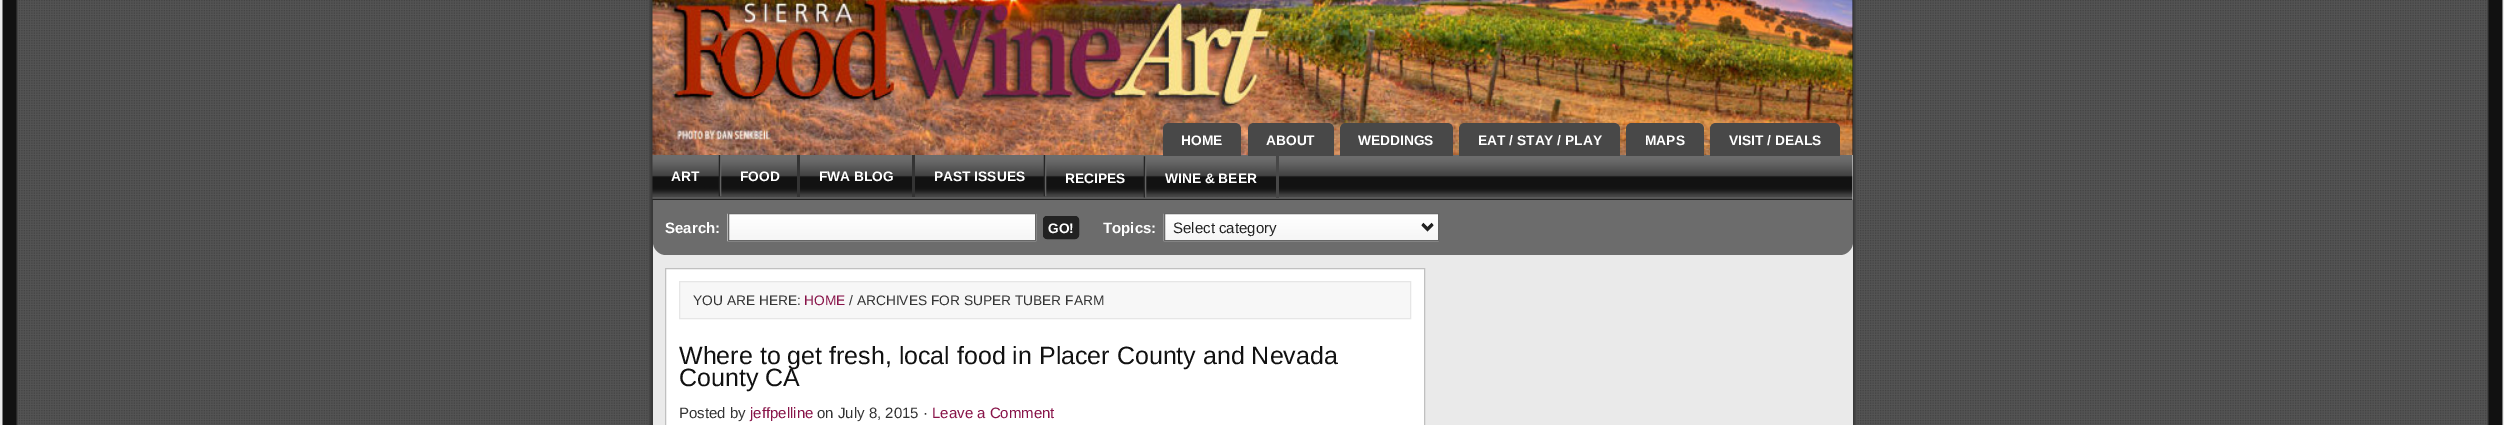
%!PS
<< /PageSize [2504 425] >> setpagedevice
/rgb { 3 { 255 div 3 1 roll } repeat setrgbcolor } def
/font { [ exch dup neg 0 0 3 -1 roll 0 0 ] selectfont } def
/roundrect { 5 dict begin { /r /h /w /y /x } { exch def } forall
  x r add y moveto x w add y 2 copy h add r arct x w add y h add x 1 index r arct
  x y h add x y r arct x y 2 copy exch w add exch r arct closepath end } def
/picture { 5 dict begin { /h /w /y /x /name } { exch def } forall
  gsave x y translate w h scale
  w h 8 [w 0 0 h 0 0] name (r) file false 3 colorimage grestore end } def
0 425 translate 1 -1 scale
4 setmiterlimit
235 235 235 rgb
0 0 2504 425 rectfill
(img/1.rgb) 2 0 2501 425 picture
234 234 234 rgb
653 155 1200 270 rectfill
17 17 17 rgb
1852 0 1 155 rectfill
(img/2.rgb) 652 0 1201 155 picture
(img/3.rgb) 652 155 1201 45 picture
72 72 72 rgb
1169 123 moveto 1235 123 lineto 1238.5 123 1241 125.5 1241 129 curveto 1241 156 lineto 1163 156 lineto 1163 129 lineto 1163 125.5 1165.5 123 1169 123 curveto closepath fill
1254 123 moveto 1328 123 lineto 1331.5 123 1334 125.5 1334 129 curveto 1334 156 lineto 1248 156 lineto 1248 129 lineto 1248 125.5 1250.5 123 1254 123 curveto closepath fill
1346 123 moveto 1447 123 lineto 1450.5 123 1453 125.5 1453 129 curveto 1453 156 lineto 1340 156 lineto 1340 129 lineto 1340 125.5 1342.5 123 1346 123 curveto closepath fill
1465 123 moveto 1614 123 lineto 1617.5 123 1620 125.5 1620 129 curveto 1620 156 lineto 1459 156 lineto 1459 129 lineto 1459 125.5 1461.5 123 1465 123 curveto closepath fill
1632 123 moveto 1698 123 lineto 1701.5 123 1704 125.5 1704 129 curveto 1704 156 lineto 1626 156 lineto 1626 129 lineto 1626 125.5 1628.5 123 1632 123 curveto closepath fill
1716 123 moveto 1834 123 lineto 1837.5 123 1840 125.5 1840 129 curveto 1840 156 lineto 1710 156 lineto 1710 129 lineto 1710 125.5 1712.5 123 1716 123 curveto closepath fill
(img/4.rgb) 718 155 4 42 picture
52 52 52 rgb
797 155 3 42 rectfill
912 155 3 42 rectfill
(img/5.rgb) 1043 155 4 42 picture
(img/6.rgb) 1143 156 4 42 picture
71 71 71 rgb
1276 156 3 42 rectfill
108 108 108 rgb
653 200 moveto 1853 200 lineto 1853 242 lineto 1853 249 1847 255 1840 255 curveto 666 255 lineto 659 255 653 249 653 242 curveto closepath fill
(img/7.rgb) 727 213 310 29 picture
102 102 102 rgb
728.5 213.5 307 27 rectstroke
34 34 34 rgb
1043.5 216.5 35 22 3.5 roundrect gsave fill grestore
stroke
(img/8.rgb) 1163 213 276 29 picture
102 102 102 rgb
1164.5 213.5 274 27 rectstroke
34 34 34 rgb
2.5 setlinewidth
1422.5 224.5 moveto 1427.5 229.5 lineto 1432.5 224.5 lineto stroke
255 255 255 rgb
665.5 268.5 moveto 1424.5 268.5 lineto 1424.5 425.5 lineto 665.5 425.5 lineto closepath gsave fill grestore
192 192 192 rgb
1 setlinewidth
stroke
247 247 247 rgb
679.5 281.5 moveto 1410.5 281.5 lineto 1410.5 318.5 lineto 679.5 318.5 lineto closepath gsave fill grestore
230 230 230 rgb
stroke
/LiberationSans-Bold 13.75 font
255 255 255 rgb
[
  [(HOME) 1181 145]
  [(ABOUT) 1266 145]
  [(WEDDINGS) 1358 145]
  [(EAT / STAY / PLAY) 1478 145]
  [(MAPS) 1645 145]
  [(VISIT / DEALS) 1729 145]
  [(ART) 671 181]
  [(FOOD) 740 181]
  [(FWA BLOG) 819 181]
  [(PAST ISSUES) 934 181]
  [(RECIPES) 1065 183]
  [(WINE & BEER) 1165 183]
] { aload pop moveto show } forall
/LiberationSans-Bold 15 font
665 233 moveto (Search:) show
/LiberationSans-Bold 13.75 font
1048 233 moveto (GO!) show
/LiberationSans-Bold 15 font
1103 233 moveto (Topics:) show
/LiberationSans-Regular 15 font
34 34 34 rgb
1173 233 moveto (Select category) show
/LiberationSans-Regular 13.75 font
51 51 51 rgb
693 305 moveto (YOU ARE HERE:) show
136 19 72 rgb
804 305 moveto (HOME) show
51 51 51 rgb
849 305 moveto (/ ARCHIVES FOR SUPER TUBER FARM) show
/LiberationSans-Regular 25 font
17 17 17 rgb
679 364 moveto (Where to get fresh, local food in Placer County and Nevada) show
679 386 moveto (County CA) show
/LiberationSans-Regular 15 font
51 51 51 rgb
679 418 moveto (Posted by) show
136 19 72 rgb
750 418 moveto (jeffpelline) show
51 51 51 rgb
817 418 moveto (on July 8, 2015 ·) show
136 19 72 rgb
932 418 moveto (Leave a Comment) show
showpage
